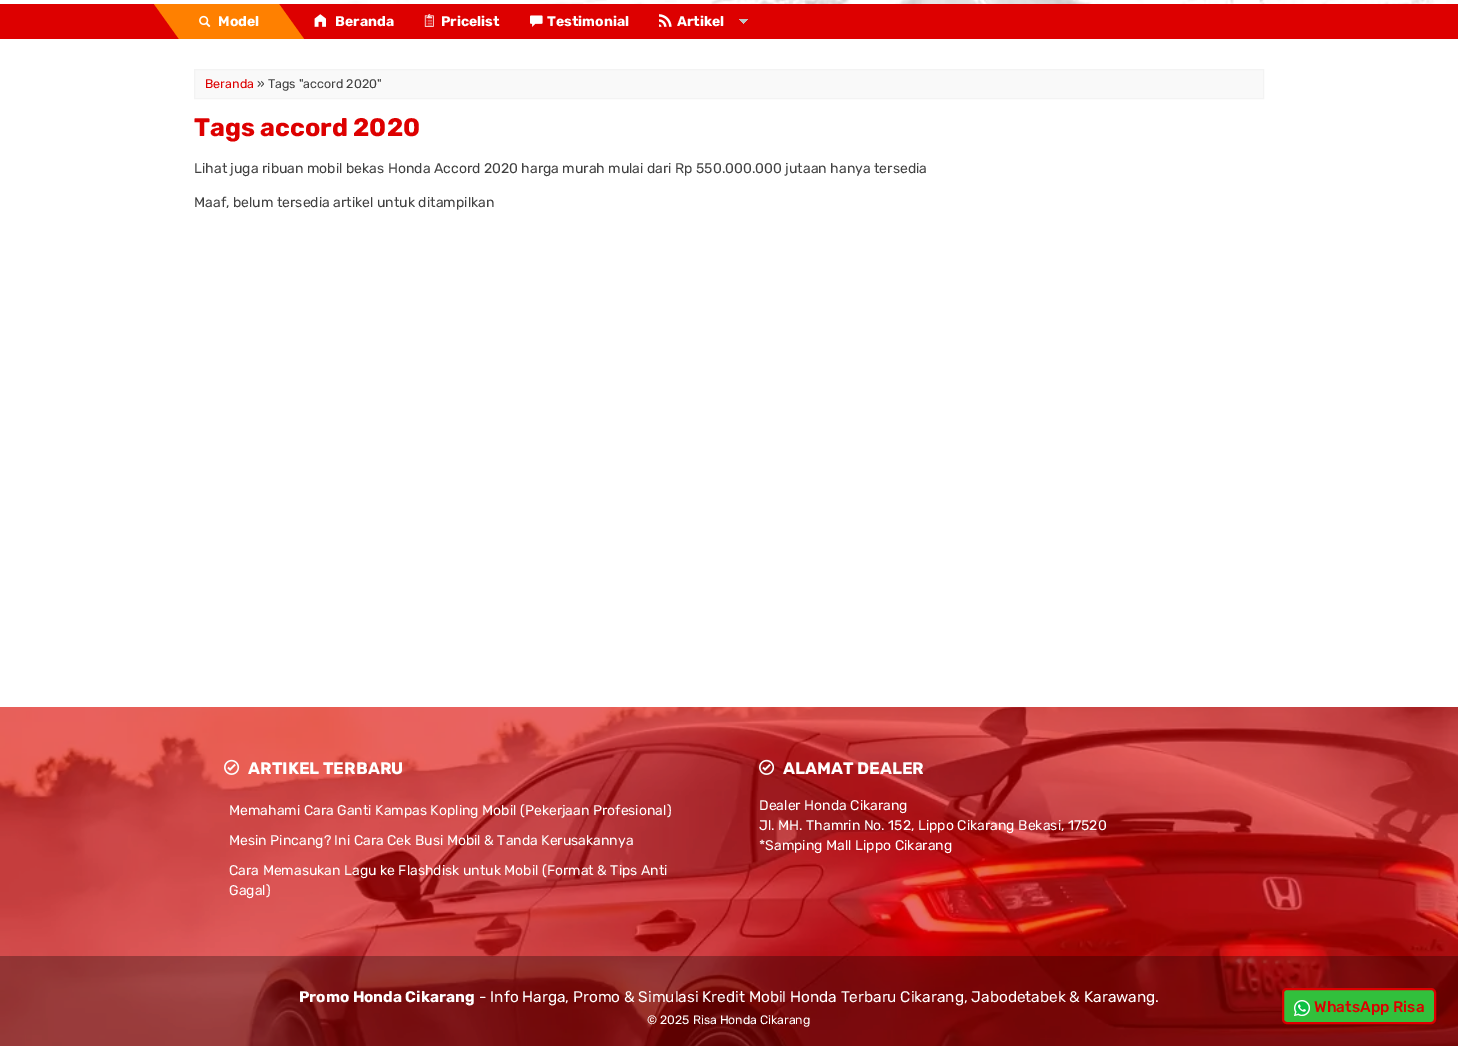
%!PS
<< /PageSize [1458 1046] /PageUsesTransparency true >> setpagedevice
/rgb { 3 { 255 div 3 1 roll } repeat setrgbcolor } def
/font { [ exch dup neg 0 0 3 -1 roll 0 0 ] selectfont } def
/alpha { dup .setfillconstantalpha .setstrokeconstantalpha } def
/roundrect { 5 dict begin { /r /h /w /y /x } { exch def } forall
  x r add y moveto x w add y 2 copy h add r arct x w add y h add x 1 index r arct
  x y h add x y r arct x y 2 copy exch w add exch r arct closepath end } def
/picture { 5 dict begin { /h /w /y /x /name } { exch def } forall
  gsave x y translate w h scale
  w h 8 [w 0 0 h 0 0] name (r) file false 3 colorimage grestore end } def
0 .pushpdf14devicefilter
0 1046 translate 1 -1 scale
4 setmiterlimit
255 255 255 rgb
0 0 1458 1046 rectfill
(img/1.rgb) 0 0 1458 4 picture
221 0 0 rgb
0 4 1458 35 rectfill
255 128 0 rgb
179 4 100 35 rectfill
179 4 moveto 179 39 lineto 154 4 lineto closepath fill
(img/2.rgb) 199 15 12 12 picture
279 39 moveto 279 4 lineto 304 39 lineto closepath fill
(img/3.rgb) 314 14 12 13 picture
(img/4.rgb) 424 14 10 13 picture
(img/5.rgb) 530 15 13 12 picture
(img/6.rgb) 739 19 9 5 picture
(img/7.rgb) 659 14 13 13 picture
249 249 249 rgb
194.5 69.5 moveto 1263.5 69.5 lineto 1263.5 98.5 lineto 194.5 98.5 lineto closepath gsave fill grestore
243 243 243 rgb
stroke
221 0 0 rgb
0 707 1458 339 rectfill
(img/8.rgb) 0 707 1458 339 picture
(img/9.rgb) 224 759 16 16 picture
(img/10.rgb) 759 759 16 16 picture
0.3 alpha
0 0 0 rgb
0 956 1458 90 rectfill
1 alpha
50 192 60 rgb
1283 989 152 34 4 roundrect gsave fill grestore
221 0 0 rgb
2 setlinewidth
stroke
(img/11.rgb) 1294 1000 16 16 picture
/Rubik-Bold 14 font
255 255 255 rgb
[
  [(Model) 218 26]
  [(Beranda) 335 26]
  [(Pricelist) 441 26]
  [(Testimonial) 547 26]
  [(Artikel) 677 26]
] { aload pop moveto show } forall
/Rubik-Regular 12.5 font
221 0 0 rgb
205 88 moveto (Beranda) show
65 65 65 rgb
257 88 moveto (» Tags "accord 2020") show
/Rubik-Bold 25.25 font
221 0 0 rgb
194 136 moveto (Tags accord 2020) show
/Rubik-Regular 14 font
65 65 65 rgb
194 173 moveto (Lihat juga ribuan mobil bekas Honda Accord 2020 harga murah mulai dari Rp 550.000.000 jutaan hanya tersedia) show
194 207 moveto (Maaf, belum tersedia artikel untuk ditampilkan) show
/Rubik-Bold 16.75 font
255 255 255 rgb
248 774 moveto (ARTIKEL TERBARU) show
/Rubik-Regular 14 font
[
  [(Memahami Cara Ganti Kampas Kopling Mobil \(Pekerjaan Profesional\)) 229 815]
  [(Mesin Pincang? Ini Cara Cek Busi Mobil & Tanda Kerusakannya) 229 845]
  [(Cara Memasukan Lagu ke Flashdisk untuk Mobil \(Format & Tips Anti) 229 875]
  [(Gagal\)) 229 895]
] { aload pop moveto show } forall
/Rubik-Bold 16.75 font
783 774 moveto (ALAMAT DEALER) show
/Rubik-Regular 14 font
[
  [(Dealer Honda Cikarang) 759 810]
  [(Jl. MH. Thamrin No. 152, Lippo Cikarang Bekasi, 17520) 759 830]
  [(*Samping Mall Lippo Cikarang) 759 850]
] { aload pop moveto show } forall
/Rubik-Bold 15.4 font
299 1002 moveto (Promo Honda Cikarang) show
/Rubik-Regular 15.4 font
479 1002 moveto (- Info Harga, Promo & Simulasi Kredit Mobil Honda Terbaru Cikarang, Jabodetabek & Karawang.) show
/Rubik-Medium 15.4 font
221 0 0 rgb
1314 1012 moveto (WhatsApp Risa) show
/Rubik-Regular 12.25 font
255 255 255 rgb
647 1024 moveto (© 2025 Risa Honda Cikarang) show
.poppdf14devicefilter showpage
